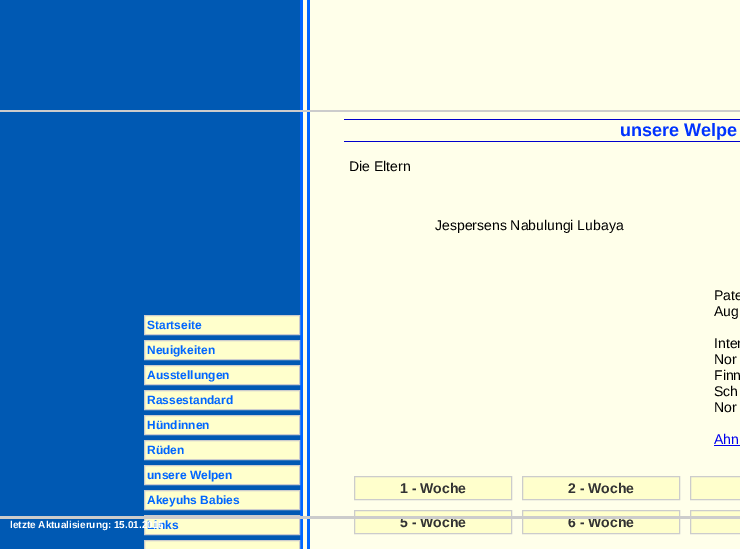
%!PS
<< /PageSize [740 549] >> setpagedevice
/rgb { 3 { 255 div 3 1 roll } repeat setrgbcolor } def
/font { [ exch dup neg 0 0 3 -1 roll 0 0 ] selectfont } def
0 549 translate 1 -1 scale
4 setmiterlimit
0 89 179 rgb
0 0 740 549 rectfill
[
  [303 0 437 549 255 255 234]
  [300 0 3 549 0 102 255]
  [307 0 3 549 0 102 255]
  [0 110 740 2 204 204 204]
] { aload pop rgb rectfill } forall
255 255 204 rgb
144.5 315.5 moveto 299.5 315.5 lineto 299.5 334.5 lineto 144.5 334.5 lineto closepath gsave fill grestore
204 204 204 rgb
stroke
255 255 204 rgb
144.5 340.5 moveto 299.5 340.5 lineto 299.5 359.5 lineto 144.5 359.5 lineto closepath gsave fill grestore
204 204 204 rgb
stroke
255 255 204 rgb
144.5 365.5 moveto 299.5 365.5 lineto 299.5 384.5 lineto 144.5 384.5 lineto closepath gsave fill grestore
204 204 204 rgb
stroke
255 255 204 rgb
144.5 390.5 moveto 299.5 390.5 lineto 299.5 409.5 lineto 144.5 409.5 lineto closepath gsave fill grestore
204 204 204 rgb
stroke
255 255 204 rgb
144.5 415.5 moveto 299.5 415.5 lineto 299.5 434.5 lineto 144.5 434.5 lineto closepath gsave fill grestore
204 204 204 rgb
stroke
255 255 204 rgb
144.5 440.5 moveto 299.5 440.5 lineto 299.5 459.5 lineto 144.5 459.5 lineto closepath gsave fill grestore
204 204 204 rgb
stroke
255 255 204 rgb
144.5 465.5 moveto 299.5 465.5 lineto 299.5 484.5 lineto 144.5 484.5 lineto closepath gsave fill grestore
204 204 204 rgb
stroke
255 255 204 rgb
144.5 490.5 moveto 299.5 490.5 lineto 299.5 509.5 lineto 144.5 509.5 lineto closepath gsave fill grestore
204 204 204 rgb
stroke
255 255 204 rgb
145 519 154 15 rectfill
204 204 204 rgb
144.5 515.5 155 19 rectstroke
255 255 204 rgb
144.5 540.5 moveto 299.5 540.5 lineto 299.5 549.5 lineto 144.5 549.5 lineto closepath gsave fill grestore
204 204 204 rgb
stroke
[
  [344 119 396 1 0 0 204]
  [344 141 396 1 0 0 204]
  [714 445 26 1 0 0 238]
] { aload pop rgb rectfill } forall
255 255 204 rgb
354.5 476.5 moveto 511.5 476.5 lineto 511.5 499.5 lineto 354.5 499.5 lineto closepath gsave fill grestore
204 204 204 rgb
stroke
255 255 204 rgb
522.5 476.5 moveto 679.5 476.5 lineto 679.5 499.5 lineto 522.5 499.5 lineto closepath gsave fill grestore
204 204 204 rgb
stroke
255 255 204 rgb
690.5 476.5 moveto 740.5 476.5 lineto 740.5 499.5 lineto 690.5 499.5 lineto closepath gsave fill grestore
204 204 204 rgb
stroke
255 255 204 rgb
354.5 510.5 moveto 511.5 510.5 lineto 511.5 533.5 lineto 354.5 533.5 lineto closepath gsave fill grestore
204 204 204 rgb
stroke
255 255 204 rgb
522.5 510.5 moveto 679.5 510.5 lineto 679.5 533.5 lineto 522.5 533.5 lineto closepath gsave fill grestore
204 204 204 rgb
stroke
255 255 204 rgb
690.5 510.5 moveto 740.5 510.5 lineto 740.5 533.5 lineto 690.5 533.5 lineto closepath gsave fill grestore
204 204 204 rgb
stroke
/LiberationSans-Bold 12 font
0 102 255 rgb
[
  [(Startseite) 147 329]
  [(Neuigkeiten) 147 354]
  [(Ausstellungen) 147 379]
  [(Rassestandard) 147 404]
  [(Hündinnen) 147 429]
  [(Rüden) 147 454]
  [(unsere Welpen) 147 479]
  [(Akeyuhs Babies) 147 504]
  [(Links) 147 529]
] { aload pop moveto show } forall
/LiberationSans-Bold 10 font
255 255 255 rgb
10 528 moveto (letzte Aktualisierung: 15.01.2016) show
/LiberationSans-Bold 18 font
0 51 255 rgb
620 136 moveto (unsere Welpe) show
/LiberationSans-Regular 14 font
0 0 0 rgb
[
  [(Die Eltern) 349 171]
  [(Jespersens Nabulungi Lubaya) 435 230]
  [(Pate) 714 300]
  [(Aug) 714 316]
  [(Inter) 714 348]
  [(Nor) 714 364]
  [(Finn) 714 380]
  [(Sch) 714 396]
  [(Nor) 714 412]
] { aload pop moveto show } forall
0 0 238 rgb
714 444 moveto (Ahn) show
/LiberationSans-Bold 14 font
51 51 51 rgb
[
  [(1 - Woche) 400 493]
  [(2 - Woche) 568 493]
  [(5 - Woche) 400 527]
  [(6 - Woche) 568 527]
] { aload pop moveto show } forall
204 204 204 rgb
0 516 740 3 rectfill
showpage
